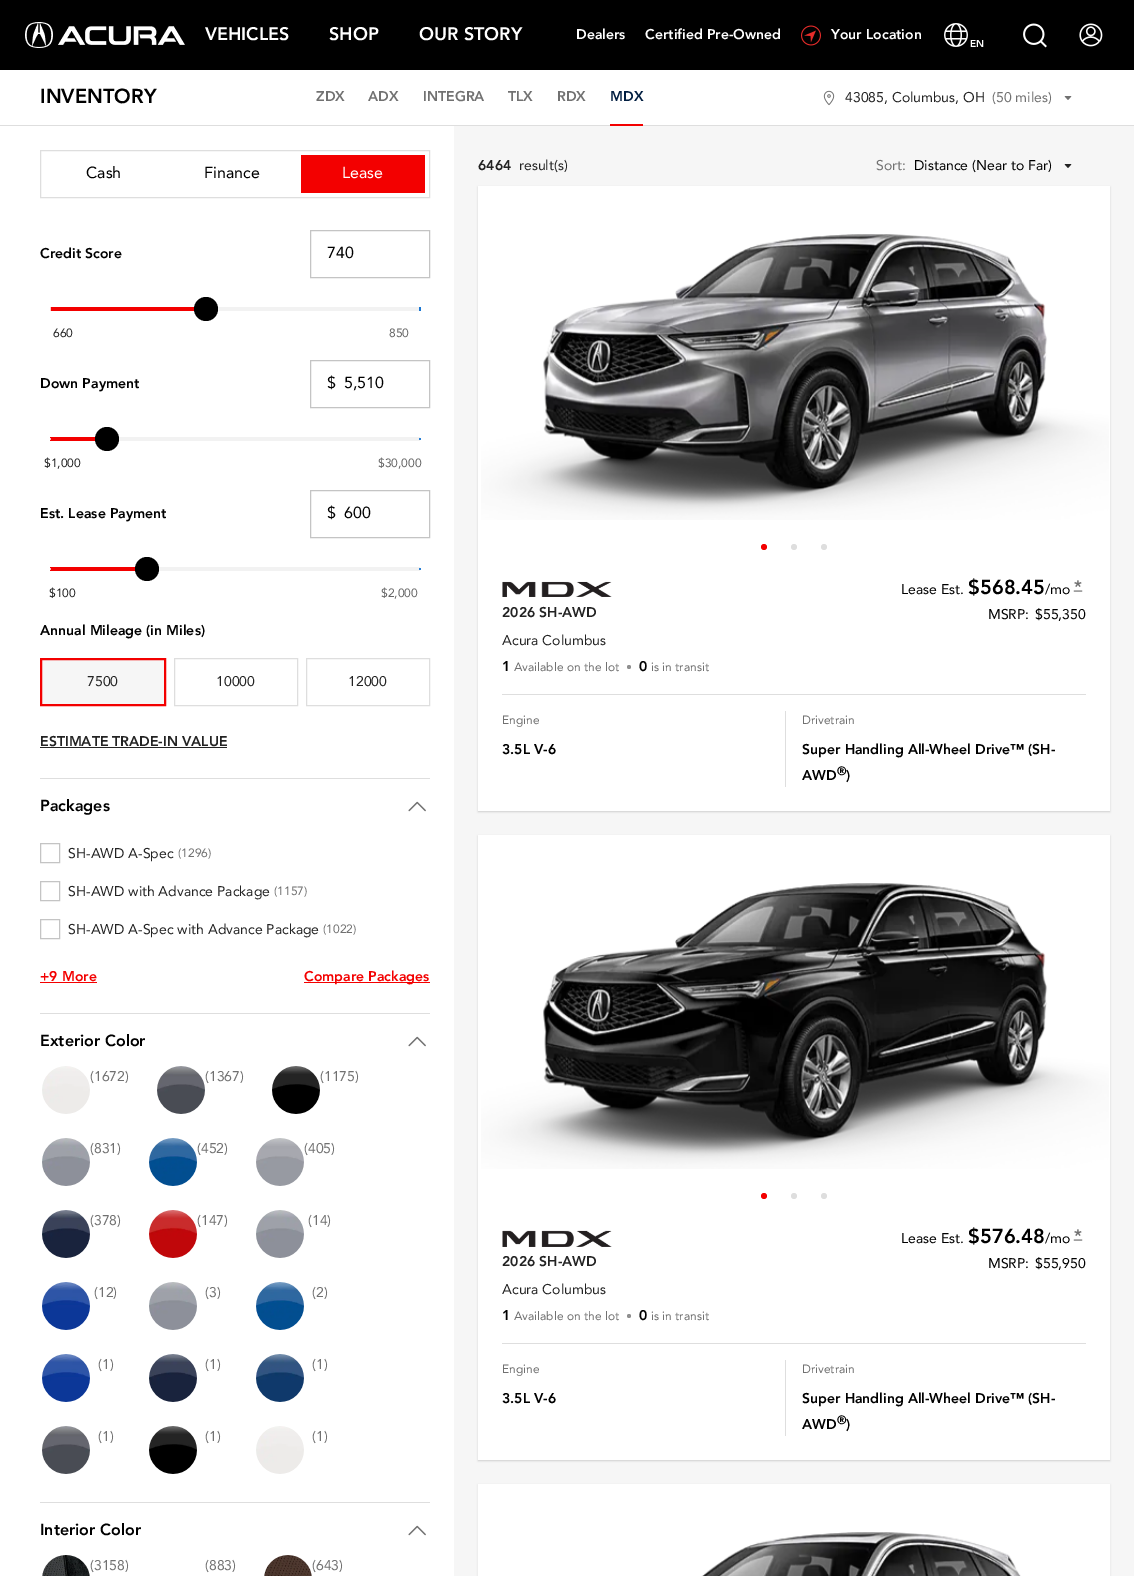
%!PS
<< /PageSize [1134 1576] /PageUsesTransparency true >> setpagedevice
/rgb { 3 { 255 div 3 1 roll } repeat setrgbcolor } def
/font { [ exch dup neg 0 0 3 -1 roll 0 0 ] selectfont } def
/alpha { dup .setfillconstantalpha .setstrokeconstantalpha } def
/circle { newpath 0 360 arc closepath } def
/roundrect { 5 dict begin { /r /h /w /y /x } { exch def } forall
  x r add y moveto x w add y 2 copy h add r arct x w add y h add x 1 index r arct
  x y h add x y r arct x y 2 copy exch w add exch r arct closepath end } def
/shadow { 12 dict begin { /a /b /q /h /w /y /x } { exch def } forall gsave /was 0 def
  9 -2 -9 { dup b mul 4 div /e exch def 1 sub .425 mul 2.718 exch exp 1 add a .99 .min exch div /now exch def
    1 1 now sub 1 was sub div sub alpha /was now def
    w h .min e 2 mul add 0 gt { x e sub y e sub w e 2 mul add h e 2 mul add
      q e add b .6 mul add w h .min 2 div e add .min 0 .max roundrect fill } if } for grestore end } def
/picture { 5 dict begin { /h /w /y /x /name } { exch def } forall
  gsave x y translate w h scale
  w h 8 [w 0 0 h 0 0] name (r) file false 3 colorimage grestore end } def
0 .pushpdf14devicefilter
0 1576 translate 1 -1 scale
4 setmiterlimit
255 255 255 rgb
0 0 1134 1576 rectfill
0 0 0 rgb
0 0 1134 70 rectfill
(img/1.rgb) 25 22 160 26 picture
(img/2.rgb) 801 25 20 21 picture
(img/3.rgb) 1023 23 24 25 picture
(img/4.rgb) 944 23 24 24 picture
(img/5.rgb) 1079 23 24 24 picture
222 222 222 rgb
0 125 1134 1 rectfill
243 0 0 rgb
610 124 33 2 rectfill
(img/6.rgb) 823 90 12 16 picture
(img/7.rgb) 1064 96 8 4 picture
222 222 222 rgb
40.5 150.5 389 47 rectstroke
243 0 0 rgb
301 155 124 38 rectfill
196 196 196 rgb
310.5 230.5 119 47 rectstroke
[
  [50 307 145 4 243 0 0]
  [50 307 1 4 253 204 204]
  [217 307 203 4 242 242 242]
] { aload pop rgb rectfill } forall
0 0 0 rgb
206 309 12 circle fill
25 118 210 rgb
419 307 2 4 rectfill
196 196 196 rgb
310.5 360.5 119 47 rectstroke
243 0 0 rgb
50 437 46 4 rectfill
242 242 242 rgb
118 437 302 4 rectfill
0 0 0 rgb
107 439 12 circle fill
0.8 alpha
255 255 255 rgb
50 439 1 circle fill
1 alpha
25 118 210 rgb
420 439 1 circle fill
196 196 196 rgb
310.5 490.5 119 47 rectstroke
243 0 0 rgb
50 567 86 4 rectfill
242 242 242 rgb
158 567 262 4 rectfill
0 0 0 rgb
147 569 12 circle fill
0.8 alpha
255 255 255 rgb
50 569 1 circle fill
1 alpha
25 118 210 rgb
420 569 1 circle fill
246 246 246 rgb
41 659 moveto 165 659 lineto 165 705 lineto 41 705 lineto closepath gsave fill grestore
243 0 0 rgb
2 setlinewidth
stroke
222 222 222 rgb
1 setlinewidth
174.5 658.5 123 47 rectstroke
306.5 658.5 123 47 rectstroke
[
  [40 778 390 1 222 222 222]
  [40 747 187 1 35 35 35]
  [40 1013 390 1 222 222 222]
] { aload pop rgb rectfill } forall
(img/8.rgb) 408 801 18 11 picture
196 196 196 rgb
40.5 843.5 19 19 rectstroke
40.5 881.5 19 19 rectstroke
40.5 919.5 19 19 rectstroke
[
  [304 982 126 1 243 0 0]
  [40 982 57 1 243 0 0]
  [40 1502 390 1 222 222 222]
] { aload pop rgb rectfill } forall
(img/8.rgb) 408 1036 18 11 picture
(img/9.rgb) 42 1066 48 48 picture
(img/10.rgb) 157 1066 48 48 picture
(img/11.rgb) 272 1066 48 48 picture
(img/12.rgb) 42 1138 48 48 picture
(img/13.rgb) 149 1138 48 48 picture
(img/14.rgb) 256 1138 48 48 picture
(img/15.rgb) 42 1210 48 48 picture
(img/16.rgb) 149 1210 48 48 picture
(img/17.rgb) 256 1210 48 48 picture
(img/18.rgb) 42 1282 48 48 picture
(img/17.rgb) 149 1282 48 48 picture
(img/13.rgb) 256 1282 48 48 picture
(img/18.rgb) 42 1354 48 48 picture
(img/19.rgb) 149 1354 48 48 picture
(img/20.rgb) 256 1354 48 48 picture
(img/21.rgb) 42 1426 48 48 picture
(img/11.rgb) 149 1426 48 48 picture
(img/22.rgb) 256 1426 48 48 picture
(img/8.rgb) 408 1525 18 11 picture
(img/23.rgb) 42 1555 48 21 picture
(img/24.rgb) 264 1555 48 21 picture
246 246 246 rgb
454 126 680 1450 rectfill
(img/25.rgb) 1064 164 8 4 picture
0 0 0 rgb
478 187 632 625 0 0.5 0.06 shadow
478 187 632 625 0 1 0.1 shadow
255 255 255 rgb
478 186 632 625 rectfill
(img/26.rgb) 481 234 628 286 picture
243 0 0 rgb
764 547 3 circle fill
222 222 222 rgb
794 547 3 circle fill
824 547 3 circle fill
(img/27.rgb) 502 581 110 16 picture
(img/28.rgb) 1073 580 10 12 picture
144 144 144 rgb
629 667 2 circle fill
222 222 222 rgb
502 694 584 1 rectfill
785 711 1 76 rectfill
0 0 0 rgb
478 836 632 625 0 0.5 0.06 shadow
478 836 632 625 0 1 0.1 shadow
255 255 255 rgb
478 835 632 625 rectfill
(img/29.rgb) 481 883 628 286 picture
243 0 0 rgb
764 1196 3 circle fill
222 222 222 rgb
794 1196 3 circle fill
824 1196 3 circle fill
(img/30.rgb) 502 1230 110 17 picture
(img/28.rgb) 1073 1229 10 12 picture
144 144 144 rgb
629 1316 2 circle fill
222 222 222 rgb
502 1343 584 1 rectfill
785 1360 1 76 rectfill
0 0 0 rgb
478 1485 632 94 0 1 0.1 shadow
255 255 255 rgb
478 1484 632 92 rectfill
(img/31.rgb) 701 1532 320 44 picture
/Avenir-Black 18 font
[
  [(VEHICLES) 205 40]
  [(SHOP) 329 40]
  [(OUR STORY) 419 40]
] { aload pop moveto show } forall
/Avenir-Black 14 font
[
  [(Dealers) 576 39]
  [(Certified Pre-Owned) 645 39]
  [(Your Location) 831 39]
] { aload pop moveto show } forall
/Avenir-Black 10 font
970 47 moveto (EN) show
/Avenir-Black 20 font
0 0 0 rgb
40 103 moveto (INVENTORY) show
/Avenir-Black 14 font
113 113 113 rgb
[
  [(ZDX) 316 101]
  [(ADX) 368 101]
  [(INTEGRA) 423 101]
  [(TLX) 508 101]
  [(RDX) 557 101]
] { aload pop moveto show } forall
1 30 65 rgb
610 101 moveto (MDX) show
/Avenir-Regular 14 font
35 35 35 rgb
845 102 moveto (43085, Columbus, OH) show
113 113 113 rgb
992 102 moveto (\(50 miles\)) show
/Avenir-Regular 16 font
0 0 0 rgb
86 178 moveto (Cash) show
204 178 moveto (Finance) show
255 255 255 rgb
342 178 moveto (Lease) show
/Avenir-Black 14 font
0 0 0 rgb
40 258 moveto (Credit Score) show
/Avenir-Regular 16 font
327 258 moveto (740) show
/Avenir-Regular 12 font
35 35 35 rgb
53 337 moveto (660) show
102 102 102 rgb
389 337 moveto (850) show
/Avenir-Black 14 font
0 0 0 rgb
40 388 moveto (Down Payment) show
/Avenir-Regular 16 font
327 388 moveto ($) show
344 388 moveto (5,510) show
/Avenir-Regular 12 font
35 35 35 rgb
44 467 moveto ($1,000) show
102 102 102 rgb
378 467 moveto ($30,000) show
/Avenir-Black 14 font
0 0 0 rgb
40 518 moveto (Est. Lease Payment) show
/Avenir-Regular 16 font
327 518 moveto ($) show
344 518 moveto (600) show
/Avenir-Regular 12 font
35 35 35 rgb
49 597 moveto ($100) show
102 102 102 rgb
381 597 moveto ($2,000) show
/Avenir-Black 14 font
0 0 0 rgb
40 635 moveto (Annual Mileage \(in Miles\)) show
/Avenir-Regular 14 font
35 35 35 rgb
[
  [(7500) 87 686]
  [(10000) 216 686]
  [(12000) 348 686]
] { aload pop moveto show } forall
/Avenir-Black 14 font
40 746 moveto (ESTIMATE TRADE-IN VALUE) show
/Avenir-Black 16 font
0 0 0 rgb
40 811 moveto (Packages) show
/Avenir-Regular 14 font
35 35 35 rgb
68 858 moveto (SH-AWD A-Spec) show
/Avenir-Regular 12 font
113 113 113 rgb
178 857 moveto (\(1296\)) show
/Avenir-Regular 14 font
35 35 35 rgb
68 896 moveto (SH-AWD with Advance Package) show
/Avenir-Regular 12 font
113 113 113 rgb
274 895 moveto (\(1157\)) show
/Avenir-Regular 14 font
35 35 35 rgb
68 934 moveto (SH-AWD A-Spec with Advance Package) show
/Avenir-Regular 12 font
113 113 113 rgb
323 933 moveto (\(1022\)) show
/Avenir-Black 14 font
243 0 0 rgb
304 981 moveto (Compare Packages) show
40 981 moveto (+9 More) show
/Avenir-Black 16 font
0 0 0 rgb
40 1046 moveto (Exterior Color) show
/Avenir-Regular 14 font
113 113 113 rgb
[
  [(\(1672\)) 90 1081]
  [(\(1367\)) 205 1081]
  [(\(1175\)) 320 1081]
  [(\(831\)) 90 1153]
  [(\(452\)) 197 1153]
  [(\(405\)) 304 1153]
  [(\(378\)) 90 1225]
  [(\(147\)) 197 1225]
  [(\(14\)) 308 1225]
  [(\(12\)) 94 1297]
  [(\(3\)) 205 1297]
  [(\(2\)) 312 1297]
  [(\(1\)) 98 1369]
  [(\(1\)) 205 1369]
  [(\(1\)) 312 1369]
  [(\(1\)) 98 1441]
  [(\(1\)) 205 1441]
  [(\(1\)) 312 1441]
] { aload pop moveto show } forall
/Avenir-Black 16 font
0 0 0 rgb
40 1535 moveto (Interior Color) show
/Avenir-Regular 14 font
113 113 113 rgb
[
  [(\(3158\)) 90 1570]
  [(\(883\)) 205 1570]
  [(\(643\)) 312 1570]
] { aload pop moveto show } forall
/Avenir-Black 14 font
35 35 35 rgb
478 170 moveto (6464) show
/Avenir-Regular 14 font
519 170 moveto (result\(s\)) show
113 113 113 rgb
876 170 moveto (Sort:) show
0 0 0 rgb
914 170 moveto (Distance \(Near to Far\)) show
/Avenir-Black 14 font
35 35 35 rgb
502 617 moveto (2026 SH-AWD) show
/Avenir-Regular 14 font
0 0 0 rgb
901 594 moveto (Lease Est.) show
/Avenir-Black 20 font
968 594 moveto ($568.45) show
/Avenir-Regular 14 font
[
  [(/mo) 1045 594]
  [(MSRP:) 988 619]
  [($55,350) 1035 619]
] { aload pop moveto show } forall
35 35 35 rgb
502 645 moveto (Acura Columbus) show
/Avenir-Black 14 font
0 0 0 rgb
502 671 moveto (1) show
/Avenir-Regular 12 font
113 113 113 rgb
514 671 moveto (Available on the lot) show
/Avenir-Black 14 font
0 0 0 rgb
639 671 moveto (0) show
/Avenir-Regular 12 font
113 113 113 rgb
651 671 moveto (is in transit) show
502 724 moveto (Engine) show
/Avenir-Black 14 font
0 0 0 rgb
502 754 moveto (3.5L V-6) show
/Avenir-Regular 12 font
113 113 113 rgb
802 724 moveto (Drivetrain) show
/Avenir-Black 14 font
0 0 0 rgb
802 754 moveto (Super Handling All-Wheel Drive™ \(SH-) show
802 780 moveto (AWD) show
/Avenir-Black 12 font
837 775 moveto (®) show
/Avenir-Black 14 font
846 780 moveto (\)) show
35 35 35 rgb
502 1266 moveto (2026 SH-AWD) show
/Avenir-Regular 14 font
0 0 0 rgb
901 1243 moveto (Lease Est.) show
/Avenir-Black 20 font
968 1243 moveto ($576.48) show
/Avenir-Regular 14 font
[
  [(/mo) 1045 1243]
  [(MSRP:) 988 1268]
  [($55,950) 1035 1268]
] { aload pop moveto show } forall
35 35 35 rgb
502 1294 moveto (Acura Columbus) show
/Avenir-Black 14 font
0 0 0 rgb
502 1320 moveto (1) show
/Avenir-Regular 12 font
113 113 113 rgb
514 1320 moveto (Available on the lot) show
/Avenir-Black 14 font
0 0 0 rgb
639 1320 moveto (0) show
/Avenir-Regular 12 font
113 113 113 rgb
651 1320 moveto (is in transit) show
502 1373 moveto (Engine) show
/Avenir-Black 14 font
0 0 0 rgb
502 1403 moveto (3.5L V-6) show
/Avenir-Regular 12 font
113 113 113 rgb
802 1373 moveto (Drivetrain) show
/Avenir-Black 14 font
0 0 0 rgb
802 1403 moveto (Super Handling All-Wheel Drive™ \(SH-) show
802 1429 moveto (AWD) show
/Avenir-Black 12 font
837 1424 moveto (®) show
/Avenir-Black 14 font
846 1429 moveto (\)) show
.poppdf14devicefilter showpage
